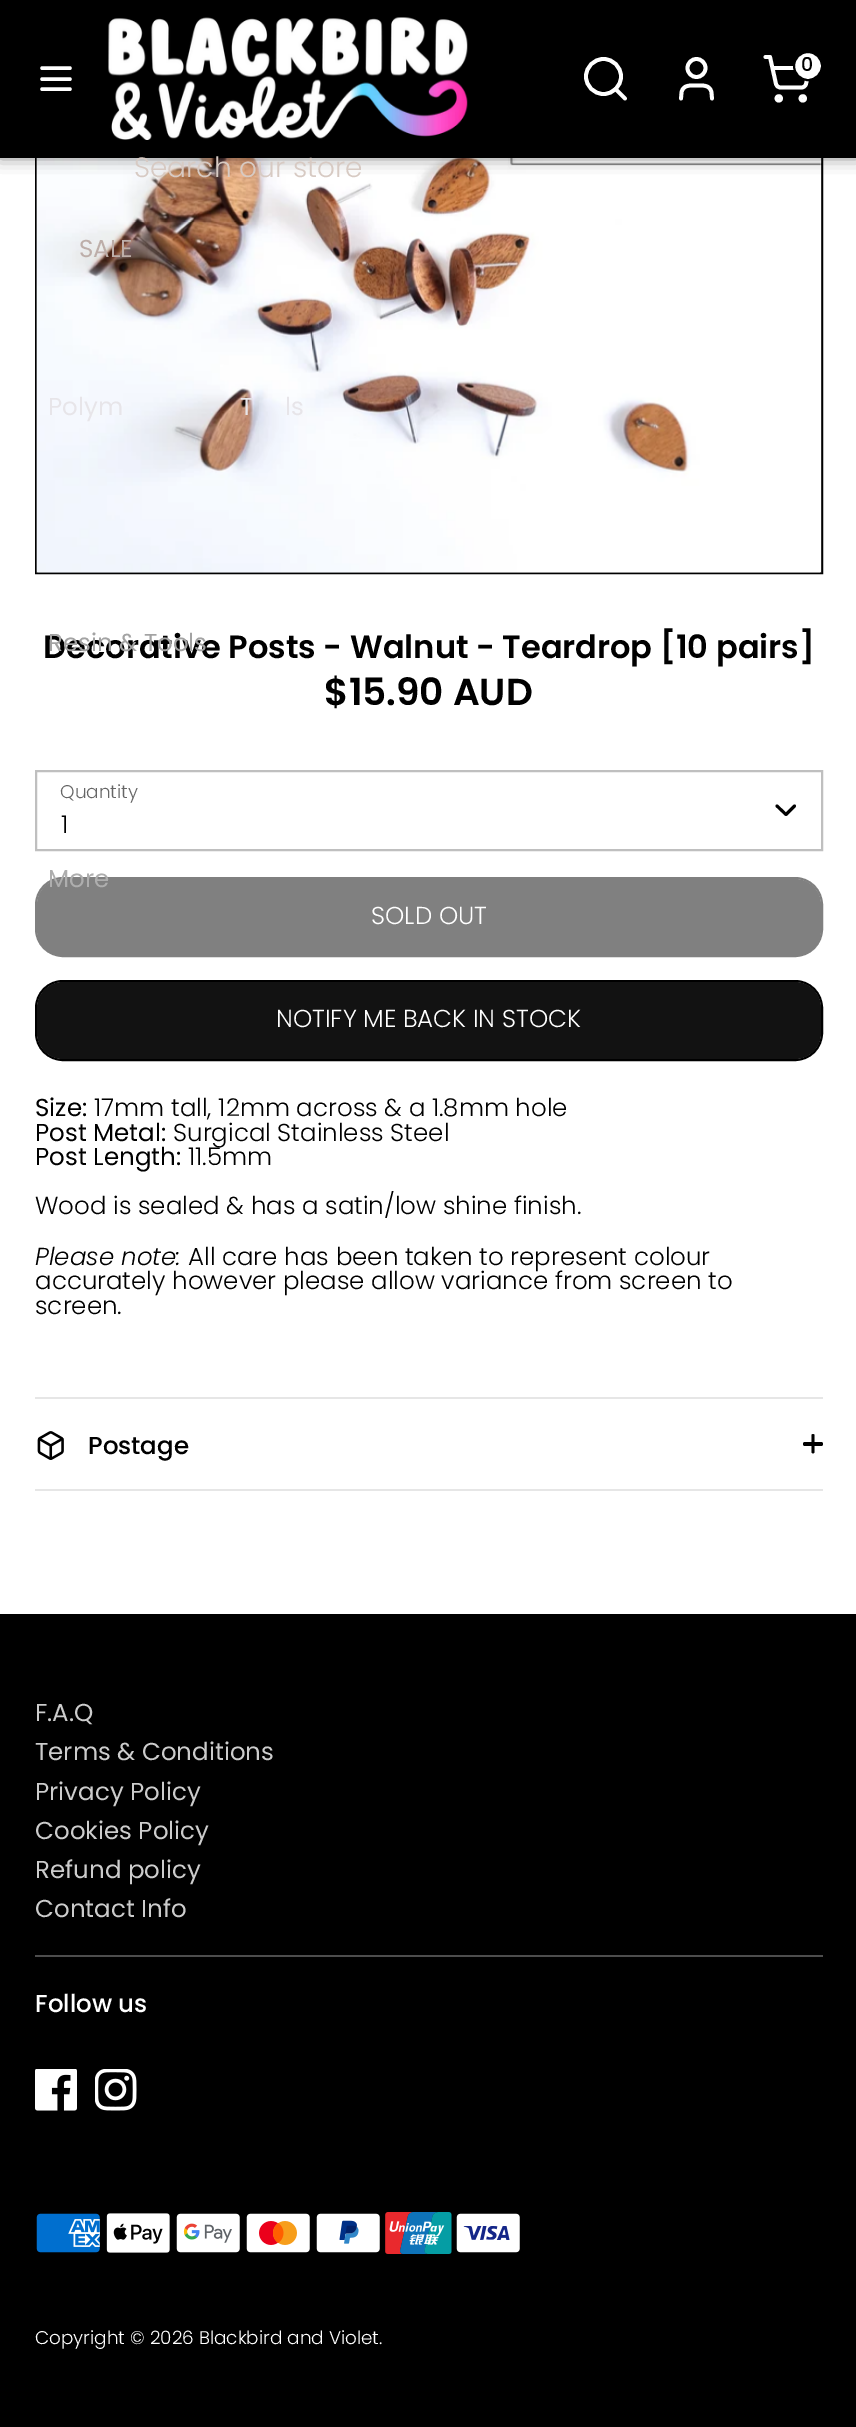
%!PS
<< /PageSize [856 2427] /PageUsesTransparency true >> setpagedevice
/rgb { 3 { 255 div 3 1 roll } repeat setrgbcolor } def
/font { [ exch dup neg 0 0 3 -1 roll 0 0 ] selectfont } def
/alpha { dup .setfillconstantalpha .setstrokeconstantalpha } def
/circle { newpath 0 360 arc closepath } def
/roundrect { 5 dict begin { /r /h /w /y /x } { exch def } forall
  x r add y moveto x w add y 2 copy h add r arct x w add y h add x 1 index r arct
  x y h add x y r arct x y 2 copy exch w add exch r arct closepath end } def
/shadow { 12 dict begin { /a /b /q /h /w /y /x } { exch def } forall gsave /was 0 def
  9 -2 -9 { dup b mul 4 div /e exch def 1 sub .425 mul 2.718 exch exp 1 add a .99 .min exch div /now exch def
    1 1 now sub 1 was sub div sub alpha /was now def
    w h .min e 2 mul add 0 gt { x e sub y e sub w e 2 mul add h e 2 mul add
      q e add b .6 mul add w h .min 2 div e add .min 0 .max roundrect fill } if } for grestore end } def
/picture { 5 dict begin { /h /w /y /x /name } { exch def } forall
  gsave x y translate w h scale
  w h 8 [w 0 0 h 0 0] name (r) file false 3 colorimage grestore end } def
0 .pushpdf14devicefilter
0 2427 translate 1 -1 scale
4 setmiterlimit
255 255 255 rgb
0 0 856 2427 rectfill
0 0 0 rgb
2 setlinewidth
36 -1 786 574 rectstroke
(img/2.rgb) 36 158 786 415 picture
0 -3 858 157 0 9 0.75 shadow
0 0 856 158 rectfill
(img/1.rgb) 108 17 360 123 picture
255 255 255 rgb
3.8 setlinewidth
603.5 76.5 17.5 circle stroke
1 setlinecap
1 setlinejoin
625 98.5 moveto 615.5 89 lineto stroke
712 98.5 moveto 711.5 92.5 lineto 710 84.5 702.5 85.5 696.5 85.5 curveto 690.5 85.5 683 84.5 681.5 92.5 curveto 681 98.5 lineto stroke
0 setlinecap
0 setlinejoin
696.5 68 9 circle stroke
778.8 98.4 2.2 circle stroke
802.8 98.4 2.2 circle stroke
1 setlinecap
1 setlinejoin
765.5 57 moveto 770 57 lineto 776 84 lineto 776.5 86 778 87.5 780.5 87.5 curveto 801.5 87.5 lineto 803.5 87.5 805.5 86 806 84 curveto 809.5 68 lineto 772.5 68 lineto stroke
808 66 14 circle gsave fill grestore
0 0 0 rgb
2 setlinewidth
0 setlinecap
0 setlinejoin
stroke
255 255 255 rgb
3.5 setlinewidth
1 setlinecap
1 setlinejoin
42 79 moveto 70 79 lineto 42 68 moveto 70 68 lineto 42 89 moveto 70 89 lineto stroke
191 191 191 rgb
2 setlinewidth
0 setlinecap
0 setlinejoin
36 771 786 79 rectstroke
0 0 0 rgb
2.9 setlinewidth
1 setlinecap
1 setlinejoin
777 806 moveto 786 814.5 lineto 794.5 806 lineto stroke
128 128 128 rgb
2 setlinewidth
0 setlinecap
0 setlinejoin
36 878 786 78 27 roundrect stroke
37 879 784 77 26 roundrect fill
0 0 0 rgb
36 981 786 79 27 roundrect stroke
18 18 18 rgb
37 982 784 77 26 roundrect fill
230 230 230 rgb
35 1397 788 2 rectfill
35 1489 788 2 rectfill
(img/3.rgb) 37 1431 27 29 picture
0 0 0 rgb
811.5 1452 moveto 811.5 1435.5 lineto 811.5 1434 813.5 1433.5 814.5 1435 curveto 814.5 1452 lineto 814 1454 811.5 1453.5 811.5 1452 curveto closepath fill
803 1442 20 4 2 roundrect fill
0 1614 856 813 rectfill
77 77 77 rgb
35 1955 788 2 rectfill
(img/4.rgb) 35 2069 42 42 picture
(img/5.rgb) 95 2069 42 42 picture
(img/6.rgb) 36 2213 64 40 picture
(img/7.rgb) 106 2213 64 40 picture
(img/8.rgb) 176 2213 64 40 picture
(img/9.rgb) 246 2213 64 40 picture
(img/10.rgb) 316 2213 64 40 picture
(img/11.rgb) 385 2212 67 42 picture
(img/12.rgb) 456 2213 64 40 picture
/Poppins-Medium 19 font
0 0 0 rgb
801 71 moveto (0) show
/Poppins-Light 28 font
215 202 195 rgb
134 177 moveto (Search our store) show
/Poppins-Regular 24.5 font
189 174 169 rgb
79 257 moveto (SALE) show
231 229 233 rgb
[
  [(Polym) 48 415]
  [(T) 240 415]
  [(ls) 285 415]
] { aload pop moveto show } forall
174 174 174 rgb
48 887 moveto (More) show
/Poppins-SemiBold 32.1 font
0 0 0 rgb
43 658 moveto (Decorative Posts - Walnut - Teardrop [10 pairs]) show
/Poppins-Regular 24.5 font
163 163 163 rgb
48 651 moveto (Resin & Tools) show
/Poppins-SemiBold 37.5 font
0 0 0 rgb
324 705 moveto ($15.90 AUD) show
/Poppins-Light 18.4 font
102 102 102 rgb
60 798 moveto (Quantity) show
/Poppins-Light 24.5 font
0 0 0 rgb
61 833 moveto (1) show
255 255 255 rgb
371 924 moveto (SOLD OUT) show
276 1027 moveto (NOTIFY ME BACK IN STOCK) show
/Poppins-Regular 24.5 font
0 0 0 rgb
35 1116 moveto (Size:) show
/Poppins-Light 24.5 font
94 1116 moveto (17mm tall, 12mm across & a 1.8mm hole) show
/Poppins-Regular 24.5 font
35 1141 moveto (Post Metal:) show
/Poppins-Light 24.5 font
173 1141 moveto (Surgical Stainless Steel) show
/Poppins-Regular 24.5 font
35 1165 moveto (Post Length:) show
/Poppins-Light 24.5 font
188 1165 moveto (11.5mm) show
35 1214 moveto (Wood is sealed & has a satin/low shine finish.) show
/Poppins-LightItalic 24.5 font
35 1265 moveto (Please note:) show
/Poppins-Light 24.5 font
[
  [(All care has been taken to represent colour) 188 1265]
  [(accurately however please allow variance from screen to) 35 1289]
  [(screen.) 35 1314]
] { aload pop moveto show } forall
/Poppins-Medium 24.5 font
88 1454 moveto (Postage) show
/Poppins-Regular 24.5 font
204 204 204 rgb
[
  [(F.A.Q) 35 1721]
  [(Terms & Conditions) 35 1760]
  [(Privacy Policy) 35 1800]
  [(Cookies Policy) 35 1839]
  [(Refund policy) 35 1878]
  [(Contact Info) 35 1917]
] { aload pop moveto show } forall
/Poppins-Medium 24.5 font
255 255 255 rgb
35 2012 moveto (Follow us) show
/Poppins-Light 18.4 font
35 2344 moveto (Copyright © 2026 Blackbird and Violet.) show
.poppdf14devicefilter showpage
